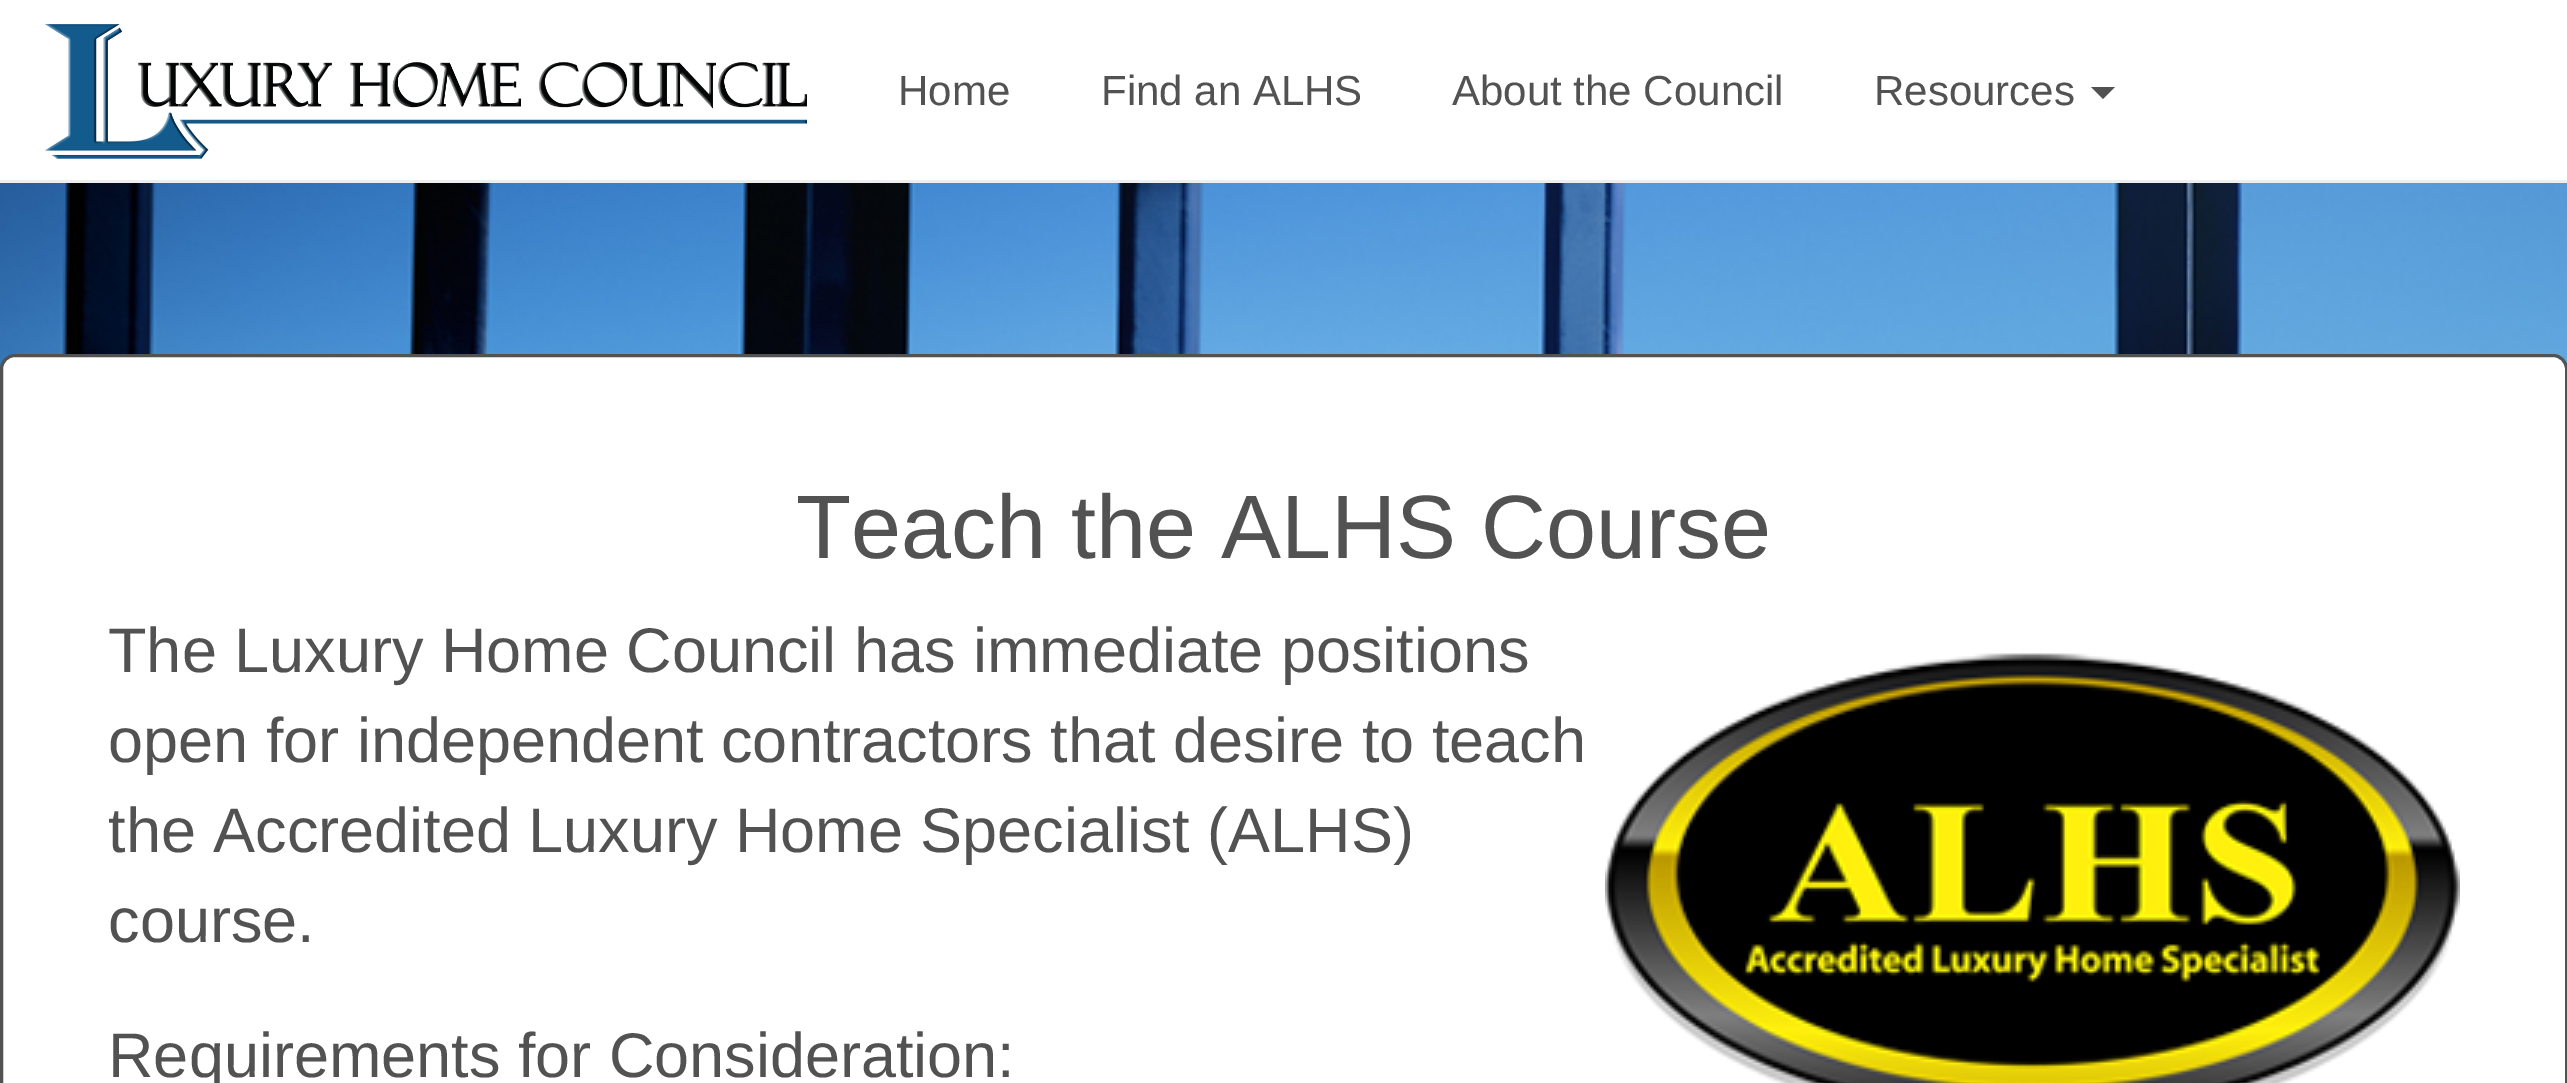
%!PS
<< /PageSize [2567 1083] >> setpagedevice
/rgb { 3 { 255 div 3 1 roll } repeat setrgbcolor } def
/font { [ exch dup neg 0 0 3 -1 roll 0 0 ] selectfont } def
/roundrect { 5 dict begin { /r /h /w /y /x } { exch def } forall
  x r add y moveto x w add y 2 copy h add r arct x w add y h add x 1 index r arct
  x y h add x y r arct x y 2 copy exch w add exch r arct closepath end } def
/picture { 5 dict begin { /h /w /y /x /name } { exch def } forall
  gsave x y translate w h scale
  w h 8 [w 0 0 h 0 0] name (r) file false 3 colorimage grestore end } def
0 1083 translate 1 -1 scale
4 setmiterlimit
255 255 255 rgb
0 0 2567 1083 rectfill
238 238 238 rgb
0 180 2567 3 rectfill
(img/1.rgb) 45 24 762 135 picture
82 82 82 rgb
2091 87 moveto 2115 87 lineto 2103 99 lineto closepath fill
(img/2.rgb) 0 183 2567 186 picture
255 255 255 rgb
1.5 355.5 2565 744 13.5 roundrect gsave fill grestore
82 82 82 rgb
3 setlinewidth
stroke
(img/3.rgb) 1605 653 855 430 picture
/LiberationSans-Regular 42 font
[
  [(Home) 898 105]
  [(Find an ALHS) 1101 105]
  [(About the Council) 1452 105]
  [(Resources) 1874 105]
] { aload pop moveto show } forall
/LiberationSans-Regular 90 font
796 558 moveto (Teach the ALHS Course) show
/LiberationSans-Regular 63 font
[
  [(The Luxury Home Council has immediate positions) 108 672]
  [(open for independent contractors that desire to teach) 108 762]
  [(the Accredited Luxury Home Specialist \(ALHS\)) 108 852]
  [(course.) 108 942]
  [(Requirements for Consideration:) 108 1077]
] { aload pop moveto show } forall
showpage
